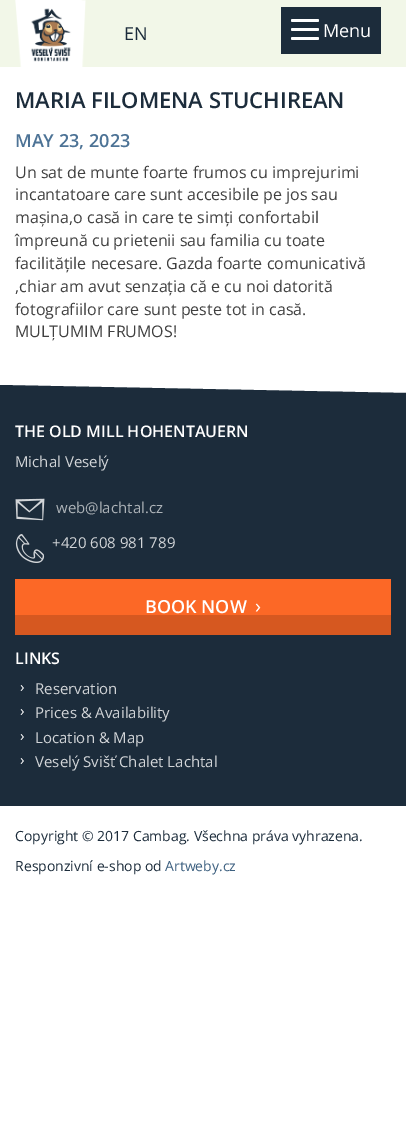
%!PS
<< /PageSize [406 1121] >> setpagedevice
/rgb { 3 { 255 div 3 1 roll } repeat setrgbcolor } def
/font { [ exch dup neg 0 0 3 -1 roll 0 0 ] selectfont } def
/roundrect { 5 dict begin { /r /h /w /y /x } { exch def } forall
  x r add y moveto x w add y 2 copy h add r arct x w add y h add x 1 index r arct
  x y h add x y r arct x y 2 copy exch w add exch r arct closepath end } def
/picture { 5 dict begin { /h /w /y /x /name } { exch def } forall
  gsave x y translate w h scale
  w h 8 [w 0 0 h 0 0] name (r) file false 3 colorimage grestore end } def
0 1121 translate 1 -1 scale
4 setmiterlimit
255 255 255 rgb
0 0 406 1121 rectfill
242 247 232 rgb
0 0 406 67 rectfill
(img/1.rgb) 15 0 71 67 picture
28 44 59 rgb
281 7 100 47 rectfill
255 255 255 rgb
291 19 28 3 1.5 roundrect fill
291 28 28 3 1.5 roundrect fill
291 37 28 3 1.5 roundrect fill
28 44 59 rgb
0 641 406 165 rectfill
0 385 moveto 406 393 lineto 406 649 lineto 0 641 lineto closepath fill
(img/2.rgb) 15 498 30 23 picture
(img/3.rgb) 15 534 30 29 picture
252 104 38 rgb
15 579 376 36 rectfill
214 88 32 rgb
15 615 376 20 rectfill
/OpenSans-Regular 18 font
28 44 59 rgb
124 40 moveto (EN) show
255 255 255 rgb
323 37 moveto (Menu) show
/OpenSans-SemiBold 22 font
28 44 59 rgb
15 108 moveto (MARIA FILOMENA STUCHIREAN) show
/OpenSans-SemiBold 18 font
77 115 150 rgb
15 147 moveto (MAY 23, 2023) show
/OpenSans-Regular 16 font
64 64 64 rgb
[
  [(Un sat de munte foarte frumos cu imprejurimi) 15 178]
  [(incantatoare care sunt accesibile pe jos sau) 15 200]
  [(mașina,o casă in care te simți confortabil) 15 223]
  [(împreună cu prietenii sau familia cu toate) 15 246]
  [(facilitățile necesare. Gazda foarte comunicativă) 15 269]
  [(,chiar am avut senzația că e cu noi datorită) 15 292]
  [(fotografiilor care sunt peste tot in casă.) 15 315]
  [(MULȚUMIM FRUMOS!) 15 337]
] { aload pop moveto show } forall
/OpenSans-SemiBold 16 font
255 255 255 rgb
15 437 moveto (THE OLD MILL HOHENTAUERN) show
/OpenSans-Regular 15 font
210 213 216 rgb
15 467 moveto (Michal Veselý) show
173 179 184 rgb
56 513 moveto (web@lachtal.cz) show
210 213 216 rgb
52 548 moveto (+420 608 981 789) show
/OpenSans-SemiBold 18 font
255 255 255 rgb
145 613 moveto (BOOK NOW) show
/OpenSans-Regular 20 font
255 613 moveto (›) show
/OpenSans-SemiBold 16 font
15 664 moveto (LINKS) show
/OpenSans-Regular 15 font
20 692 moveto (›) show
210 213 216 rgb
35 694 moveto (Reservation) show
255 255 255 rgb
20 716 moveto (›) show
210 213 216 rgb
35 718 moveto (Prices & Availability) show
255 255 255 rgb
20 741 moveto (›) show
210 213 216 rgb
35 743 moveto (Location & Map) show
255 255 255 rgb
20 765 moveto (›) show
210 213 216 rgb
35 767 moveto (Veselý Svišť Chalet Lachtal) show
/OpenSans-Regular 14 font
28 44 59 rgb
15 841 moveto (Copyright © 2017 Cambag. Všechna práva vyhrazena.) show
15 871 moveto (Responzivní e-shop od) show
61 96 128 rgb
165 871 moveto (Artweby.cz) show
showpage
